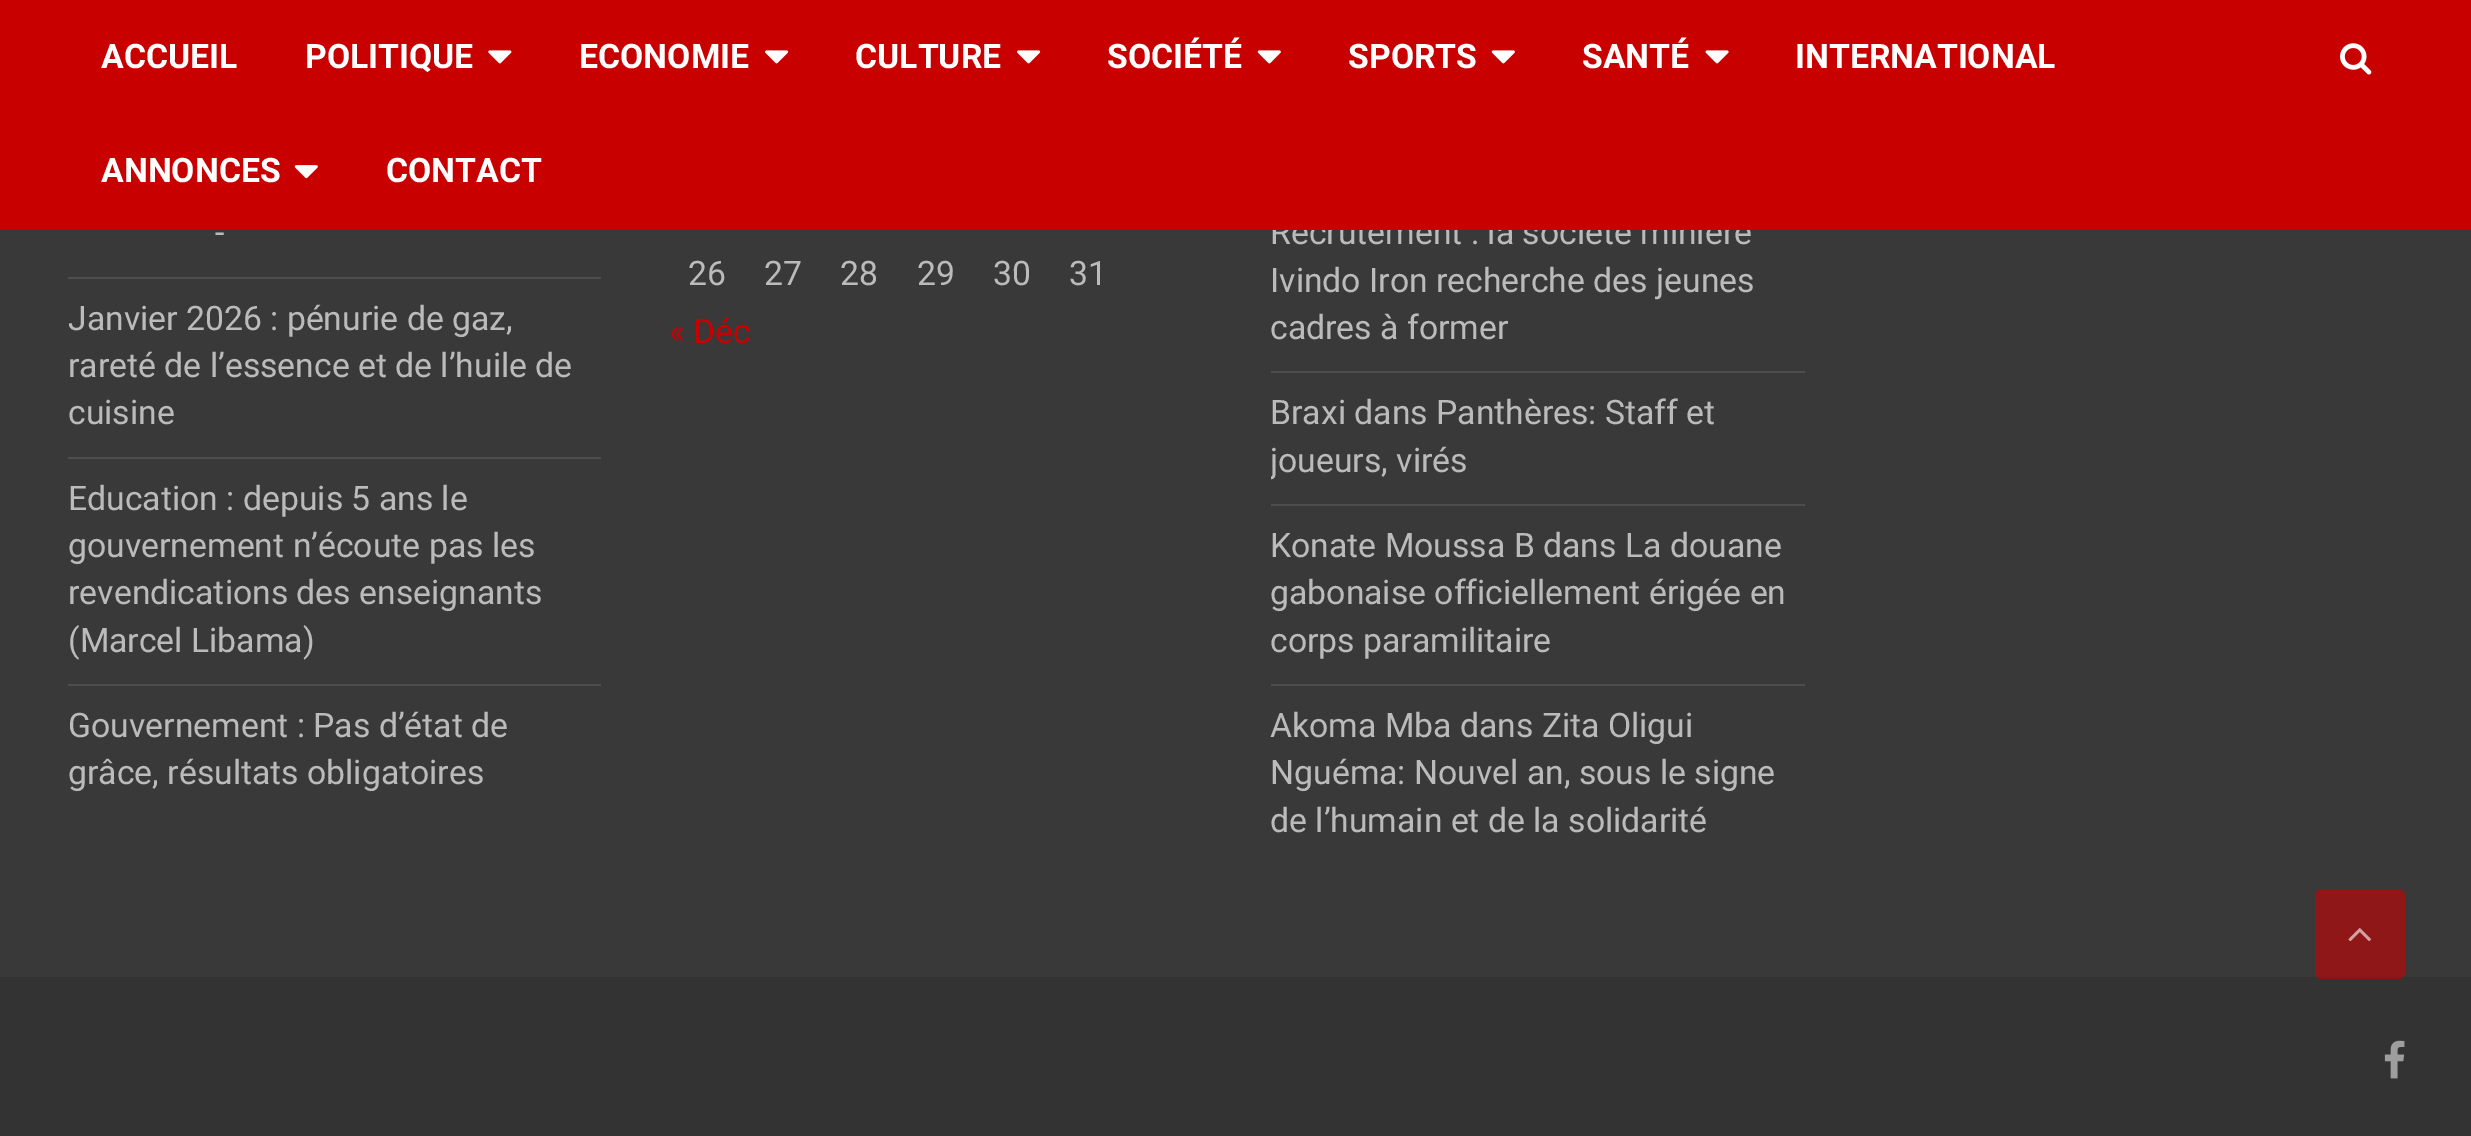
%!PS
<< /PageSize [2471 1136] /PageUsesTransparency true >> setpagedevice
/rgb { 3 { 255 div 3 1 roll } repeat setrgbcolor } def
/font { [ exch dup neg 0 0 3 -1 roll 0 0 ] selectfont } def
/alpha { dup .setfillconstantalpha .setstrokeconstantalpha } def
/roundrect { 5 dict begin { /r /h /w /y /x } { exch def } forall
  x r add y moveto x w add y 2 copy h add r arct x w add y h add x 1 index r arct
  x y h add x y r arct x y 2 copy exch w add exch r arct closepath end } def
/picture { 5 dict begin { /h /w /y /x /name } { exch def } forall
  gsave x y translate w h scale
  w h 8 [w 0 0 h 0 0] name (r) file false 3 colorimage grestore end } def
0 .pushpdf14devicefilter
0 1136 translate 1 -1 scale
4 setmiterlimit
57 57 57 rgb
0 0 2471 1136 rectfill
[
  [68 277 533 2 77 77 77]
  [68 457 533 2 77 77 77]
  [68 684 533 2 77 77 77]
  [1271 371 534 2 77 77 77]
  [1271 504 534 2 77 77 77]
  [1271 684 534 2 77 77 77]
  [0 977 2471 159 51 51 51]
] { aload pop rgb rectfill } forall
(img/7.rgb) 2384 1040 21 39 picture
0.6 alpha
200 0 0 rgb
2315 889 90 90 7 roundrect fill
1 alpha
(img/8.rgb) 2348 928 23 14 picture
/Roboto-Regular 33.75 font
187 187 187 rgb
[
  [(-) 215 244]
  [(Janvier 2026 : pénurie de gaz,) 68 330]
  [(rareté de l’essence et de l’huile de) 68 377]
  [(cuisine) 68 424]
  [(Education : depuis 5 ans le) 68 510]
  [(gouvernement n’écoute pas les) 68 557]
  [(revendications des enseignants) 68 604]
  [(\(Marcel Libama\)) 68 652]
  [(Gouvernement : Pas d’état de) 68 737]
  [(grâce, résultats obligatoires) 68 784]
  [(26) 688 285]
  [(27) 764 285]
  [(28) 840 285]
  [(29) 917 285]
  [(30) 993 285]
  [(31) 1069 285]
] { aload pop moveto show } forall
200 0 0 rgb
669 343 moveto (« Déc) show
187 187 187 rgb
1270 244 moveto (Recrutement : la société minière) show
200 0 0 rgb
0 0 2471 230 rectfill
(img/6.rgb) 2340 43 32 32 picture
/Roboto-Bold 33.75 font
255 255 255 rgb
386 182 moveto (CONTACT) show
(img/5.rgb) 294 165 24 14 picture
101 182 moveto (ANNONCES) show
1795 68 moveto (INTERNATIONAL) show
(img/4.rgb) 1705 50 24 14 picture
1582 68 moveto (SANTÉ) show
(img/3.rgb) 1491 50 24 14 picture
1348 68 moveto (SPORTS) show
(img/3.rgb) 1257 50 24 14 picture
1107 68 moveto (SOCIÉTÉ) show
(img/2.rgb) 1017 50 24 14 picture
855 68 moveto (CULTURE) show
(img/2.rgb) 765 50 24 14 picture
579 68 moveto (ECONOMIE) show
(img/1.rgb) 488 50 24 14 picture
305 68 moveto (POLITIQUE) show
101 68 moveto (ACCUEIL) show
/Roboto-Regular 33.75 font
187 187 187 rgb
[
  [(Ivindo Iron recherche des jeunes) 1270 292]
  [(cadres à former) 1270 339]
  [(Braxi dans Panthères: Staff et) 1270 424]
] { aload pop moveto show } forall
gsave
1271 0 534 864 rectclip
1270 472 moveto (joueurs, virés) show
grestore
[
  [(Konate Moussa B dans La douane) 1270 557]
  [(gabonaise officiellement érigée en) 1270 604]
  [(corps paramilitaire) 1270 652]
  [(Akoma Mba dans Zita Oligui) 1270 737]
  [(Nguéma: Nouvel an, sous le signe) 1270 784]
  [(de l’humain et de la solidarité) 1270 832]
] { aload pop moveto show } forall
.poppdf14devicefilter showpage
